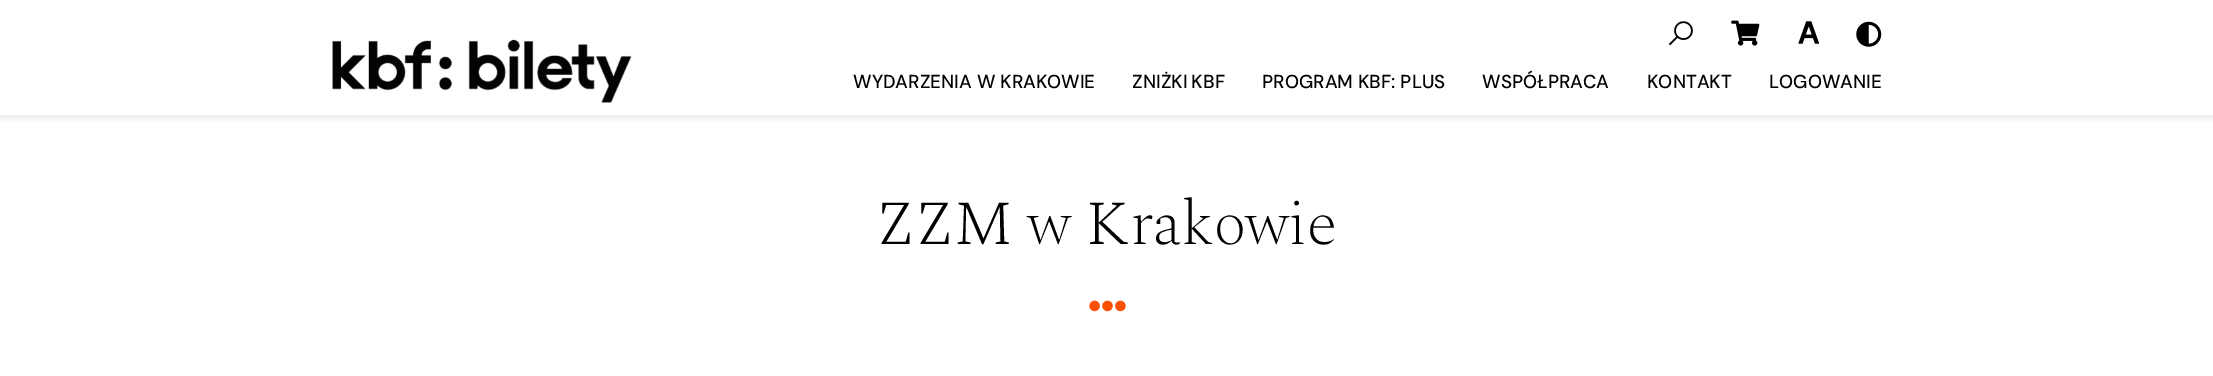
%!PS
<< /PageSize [2213 376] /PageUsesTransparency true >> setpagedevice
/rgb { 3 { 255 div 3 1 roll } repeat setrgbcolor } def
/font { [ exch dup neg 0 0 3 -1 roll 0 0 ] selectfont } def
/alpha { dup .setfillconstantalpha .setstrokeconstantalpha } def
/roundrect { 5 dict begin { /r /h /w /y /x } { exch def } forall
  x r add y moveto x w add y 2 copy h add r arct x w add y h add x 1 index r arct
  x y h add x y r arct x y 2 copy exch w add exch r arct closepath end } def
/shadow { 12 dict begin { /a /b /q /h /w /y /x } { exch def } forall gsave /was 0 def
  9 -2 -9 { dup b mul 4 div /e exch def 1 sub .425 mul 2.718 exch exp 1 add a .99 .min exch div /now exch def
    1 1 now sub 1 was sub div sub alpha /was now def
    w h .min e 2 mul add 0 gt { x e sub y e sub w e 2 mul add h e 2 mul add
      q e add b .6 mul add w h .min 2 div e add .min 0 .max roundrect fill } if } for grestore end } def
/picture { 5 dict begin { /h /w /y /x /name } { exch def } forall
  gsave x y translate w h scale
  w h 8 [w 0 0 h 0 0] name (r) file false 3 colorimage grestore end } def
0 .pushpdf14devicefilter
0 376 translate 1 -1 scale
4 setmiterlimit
255 255 255 rgb
0 0 2213 376 rectfill
gsave
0 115 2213 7 rectclip
57 63 72 rgb
0 4 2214 115 0 3 0.1 shadow
grestore
(img/1.rgb) 1668 21 25 25 picture
(img/2.rgb) 1731 20 29 26 picture
(img/3.rgb) 1798 21 22 23 picture
(img/4.rgb) 1856 21 26 26 picture
(img/5.rgb) 332 39 300 64 picture
(img/6.rgb) 1089 300 37 12 picture
/DMSans-Medium 18.75 font
0 0 0 rgb
853 88 moveto (WYDARZENIA W KRAKOWIE) show
1132 88 moveto -1 0 32 (ZNIŻKI KBF) widthshow
[
  [(PROGRAM KBF: PLUS) 1262 88]
  [(WSPÓŁPRACA) 1482 88]
  [(KONTAKT) 1647 88]
  [(LOGOWANIE) 1769 88]
] { aload pop moveto show } forall
/Spectral-ExtraLight 62.5 font
876 244 moveto (ZZM w Krakowie) show
.poppdf14devicefilter showpage
